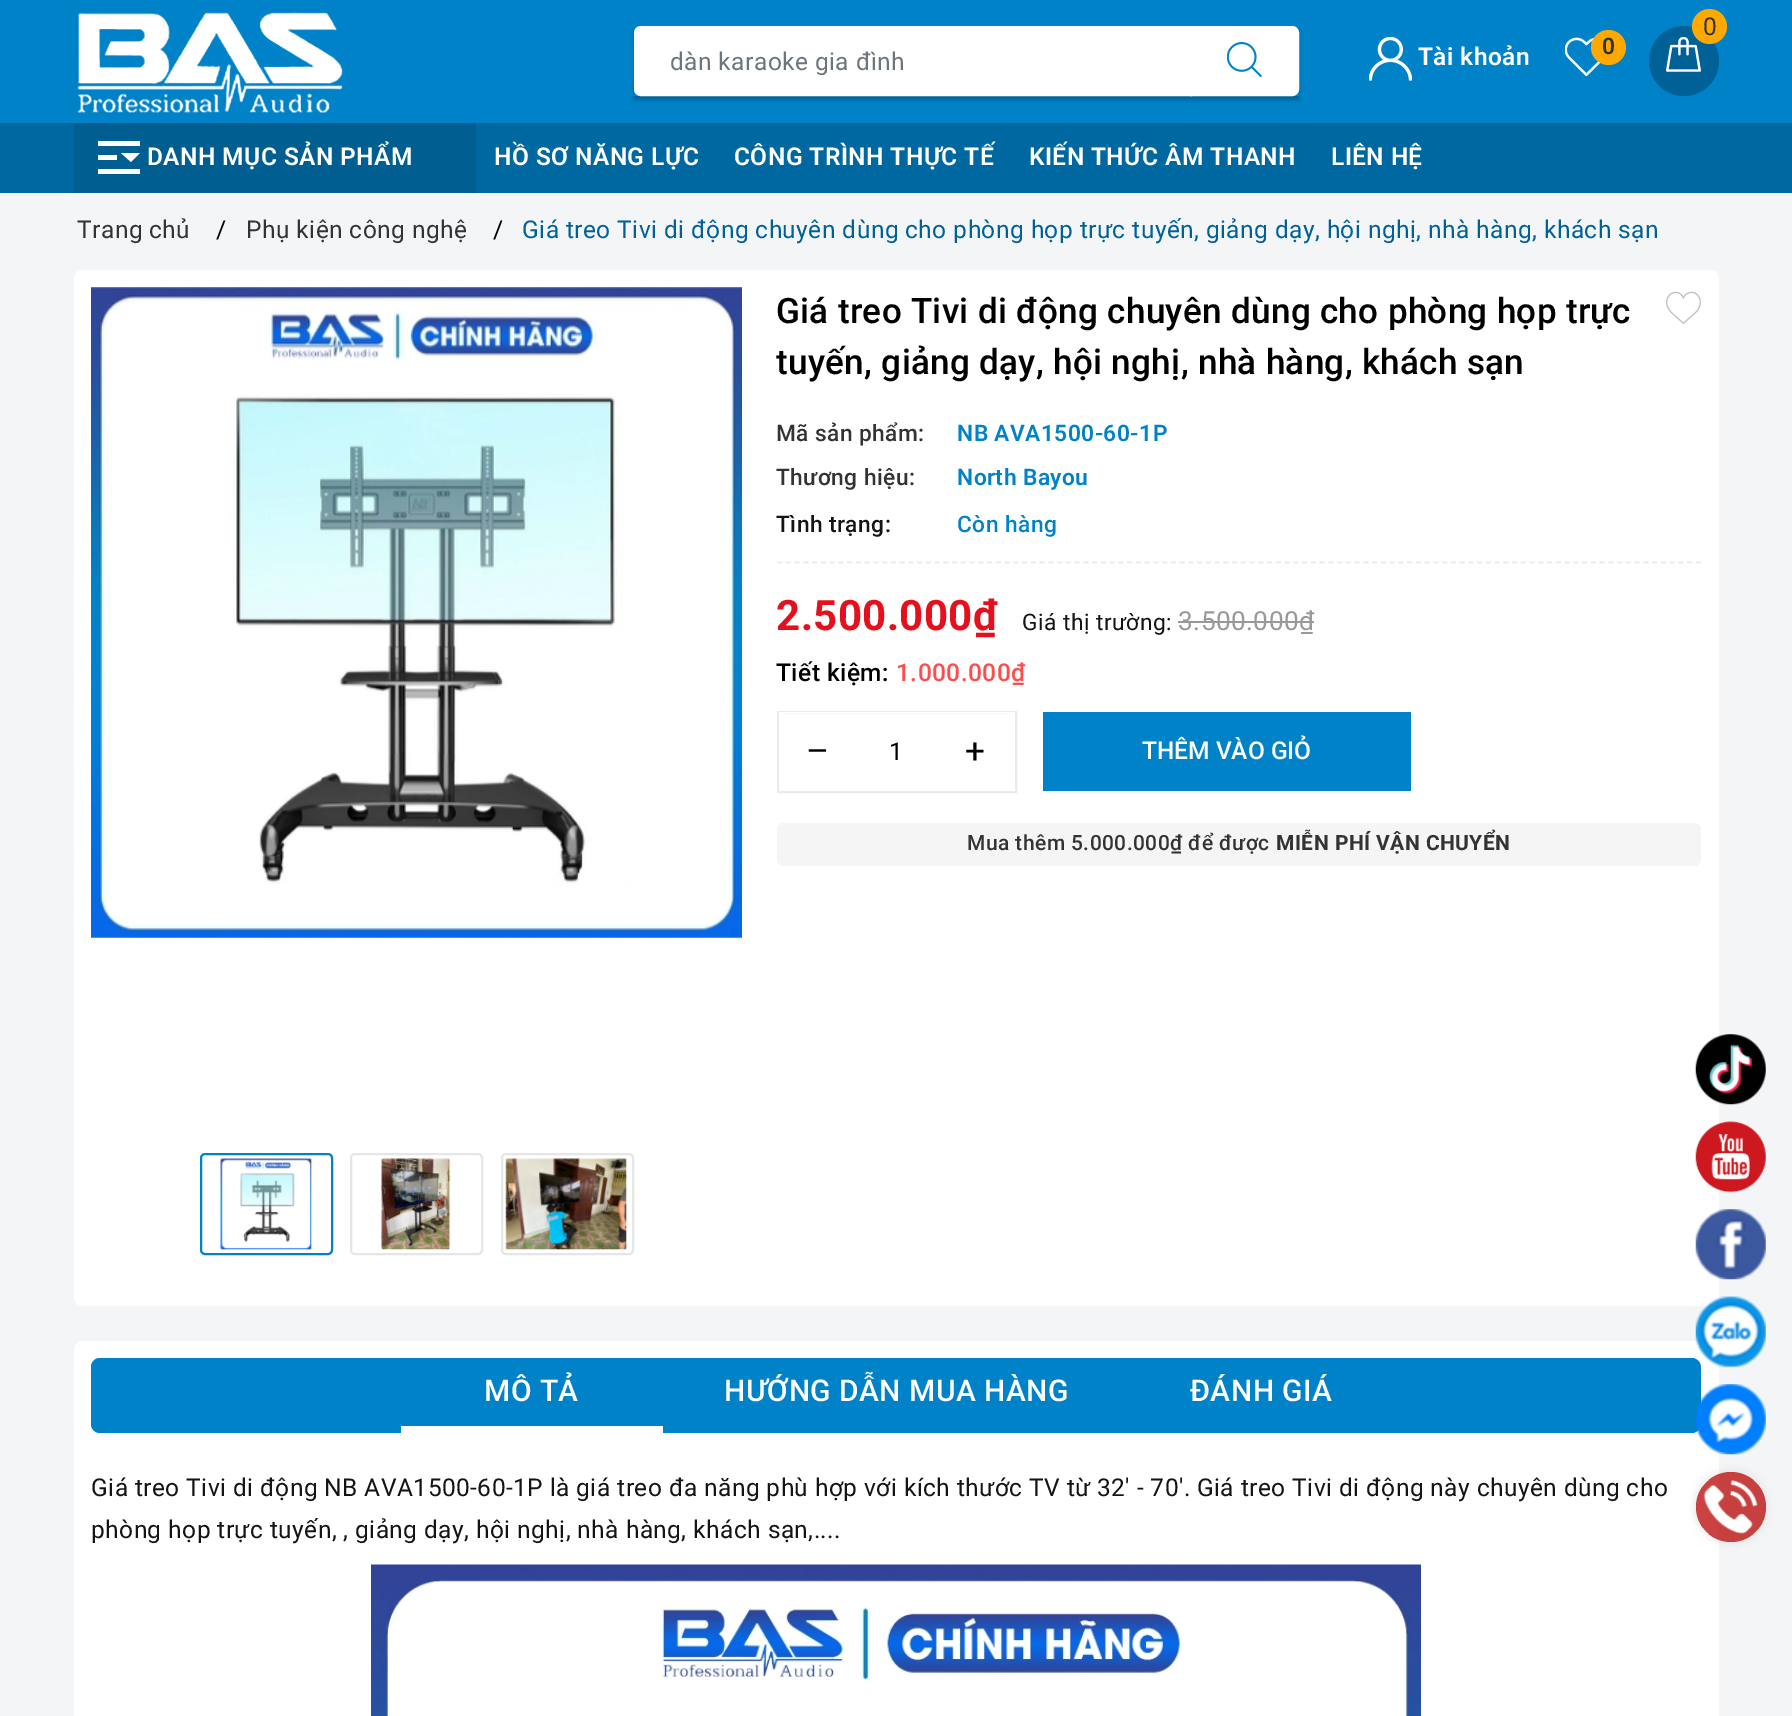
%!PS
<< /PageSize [1792 1716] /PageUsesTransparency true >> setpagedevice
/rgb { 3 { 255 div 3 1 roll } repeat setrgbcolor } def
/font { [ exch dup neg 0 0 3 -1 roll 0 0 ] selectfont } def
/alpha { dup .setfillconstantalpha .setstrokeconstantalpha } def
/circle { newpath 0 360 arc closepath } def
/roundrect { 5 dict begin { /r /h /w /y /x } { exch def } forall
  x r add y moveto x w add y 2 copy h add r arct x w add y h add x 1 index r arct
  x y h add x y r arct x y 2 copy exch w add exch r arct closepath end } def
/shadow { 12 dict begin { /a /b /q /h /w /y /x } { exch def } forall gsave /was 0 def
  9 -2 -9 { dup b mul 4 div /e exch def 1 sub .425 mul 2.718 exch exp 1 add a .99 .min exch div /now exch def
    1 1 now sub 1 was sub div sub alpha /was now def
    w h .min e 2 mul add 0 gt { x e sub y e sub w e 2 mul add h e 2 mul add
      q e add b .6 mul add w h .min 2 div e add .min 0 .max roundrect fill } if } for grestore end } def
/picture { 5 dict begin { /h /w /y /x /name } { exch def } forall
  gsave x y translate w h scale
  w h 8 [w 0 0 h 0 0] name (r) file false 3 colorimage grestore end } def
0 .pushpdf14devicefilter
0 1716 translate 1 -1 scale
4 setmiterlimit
243 245 247 rgb
0 0 1792 1716 rectfill
0 130 201 rgb
0 0 1792 123 rectfill
(img/1.rgb) 77 12 266 101 picture
gsave
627 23 moveto 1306 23 lineto 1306 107 lineto 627 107 lineto closepath 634 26 moveto 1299 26 lineto 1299 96 lineto 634 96 lineto closepath eoclip newpath
0 0 0 rgb
634 30 665 70 0 2 0.24 shadow
grestore
255 255 255 rgb
641 27 moveto 1191 27 lineto 1191 95 lineto 641 95 lineto 637.5 95 635 92.5 635 89 curveto 635 33 lineto 635 29.5 637.5 27 641 27 curveto closepath gsave fill grestore
2 setlinewidth
stroke
1191 27 moveto 1292 27 lineto 1295.5 27 1298 29.5 1298 33 curveto 1298 89 lineto 1298 92.5 1295.5 95 1292 95 curveto 1191 95 lineto closepath gsave fill grestore
stroke
(img/2.rgb) 1227 42 35 35 picture
0 97 150 rgb
1684 61 35 circle fill
(img/3.rgb) 1666 37 35 35 picture
255 168 0 rgb
1709.5 26.5 17.5 circle fill
(img/4.rgb) 1369 37 43 44 picture
(img/5.rgb) 1565 37 36 40 picture
1608.5 47.5 17.5 circle fill
0 104 160 rgb
0 123 1792 70 rectfill
0 94 144 rgb
74 123 402 70 rectfill
255 255 255 rgb
98 174 moveto 140 174 lineto 140 169 lineto 98 169 lineto closepath 98 160 moveto 117 160 lineto 117 155 lineto 98 155 lineto closepath 98 141 moveto 98 146 lineto 140 146 lineto 140 141 lineto closepath 121 153 moveto 131 162 lineto 140 153 lineto closepath fill
74 270 1645 1036 9 roundrect fill
(img/6.rgb) 91 287 651 651 picture
0 130 201 rgb
201 1154 131 100 4 roundrect stroke
(img/7.rgb) 220 1158 92 92 picture
230 230 230 rgb
351 1154 131 100 4 roundrect stroke
(img/8.rgb) 381 1158 70 92 picture
502 1154 131 100 4 roundrect stroke
(img/9.rgb) 505 1158 122 92 picture
(img/10.rgb) 1666 291 35 34 picture
234 235 243 rgb
1.8 setlinewidth
[5.25 3.5] 0 setdash
777 562.5 moveto 1701 562.5 lineto stroke
153 153 153 rgb
1178 621 136 2 rectfill
235 235 235 rgb
2 setlinewidth
[] 0 setdash
778 712 238 80 rectstroke
255 255 255 rgb
779 712 236 1 rectfill
0 130 201 rgb
1043 712 368 79 rectfill
245 245 245 rgb
777 823 924 43 7 roundrect fill
255 255 255 rgb
74 1341 1645 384 9 roundrect fill
0 130 201 rgb
91 1358 1610 75 9 roundrect fill
255 255 255 rgb
401 1426 262 7 rectfill
(img/11.rgb) 371 1564 1050 152 picture
(img/12.rgb) 1695 1034 71 71 picture
(img/13.rgb) 1695 1121 71 72 picture
(img/14.rgb) 1695 1209 71 71 picture
(img/15.rgb) 1695 1296 71 72 picture
(img/16.rgb) 1695 1384 71 71 picture
gsave
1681 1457 moveto 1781 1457 lineto 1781 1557 lineto 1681 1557 lineto closepath 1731 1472 moveto 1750.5 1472 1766 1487.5 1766 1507 curveto 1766 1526.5 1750.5 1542 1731 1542 curveto 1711.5 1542 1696 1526.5 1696 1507 curveto 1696 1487.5 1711.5 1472 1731 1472 curveto closepath eoclip newpath
221 221 221 rgb
1696 1472 70 70 35 4.5 1 shadow
grestore
0.74 alpha
183 1 0 rgb
1731 1507 35 circle fill
1 alpha
(img/17.rgb) 1703 1480 55 54 picture
/Roboto-Regular 24.5 font
108 117 125 rgb
670 70 moveto 0.44 0 (dàn karaoke gia đình) ashow
51 51 51 rgb
1703 35 moveto 0.44 0 (0) ashow
/Roboto-SemiBold 24.5 font
255 255 255 rgb
1418 65 moveto 0.44 0 (Tài khoản) ashow
/Roboto-SemiBold 22.75 font
51 51 51 rgb
1602 54 moveto 0.44 0 (0) ashow
/Roboto-SemiBold 24.5 font
255 255 255 rgb
147 165 moveto 0.44 0 (DANH MỤC SẢN PHẨM) ashow
494 165 moveto 0.44 0 (HỒ SƠ NĂNG LỰC) ashow
734 165 moveto 0.44 0 (CÔNG TRÌNH THỰC TẾ) ashow
1029 165 moveto 0.44 0 (KIẾN THỨC ÂM THANH) ashow
1331 165 moveto 0.44 0 (LIÊN HỆ) ashow
/Roboto-Regular 24.5 font
51 51 51 rgb
77 238 moveto 0.44 0 (Trang chủ) ashow
0 0 0 rgb
216 238 moveto 0.44 0 (/) ashow
51 51 51 rgb
246 238 moveto 0.44 0 (Phụ kiện công nghệ) ashow
0 0 0 rgb
493 238 moveto 0.44 0 (/) ashow
0 97 150 rgb
522 238 moveto 0.44 0 (Giá treo Tivi di động chuyên dùng cho phòng họp trực tuyến, giảng dạy, hội nghị, nhà hàng, khách sạn) ashow
/Roboto-Medium 35 font
0 0 0 rgb
776 323 moveto 0.35 0 (Giá treo Tivi di động chuyên dùng cho phòng họp trực) ashow
776 374 moveto 0.35 0 (tuyến, giảng dạy, hội nghị, nhà hàng, khách sạn) ashow
/Roboto-Medium 22.75 font
51 51 51 rgb
776 441 moveto 0.44 0 (Mã sản phẩm:) ashow
/Roboto-SemiBold 22.75 font
0 130 201 rgb
957 441 moveto 0.44 0 (NB AVA1500-60-1P) ashow
/Roboto-Medium 22.75 font
51 51 51 rgb
776 485 moveto 0.44 0 (Thương hiệu:) ashow
/Roboto-SemiBold 22.75 font
0 130 201 rgb
957 485 moveto 0.44 0 (North Bayou) ashow
/Roboto-Medium 22.75 font
20 20 20 rgb
776 532 moveto 0.44 0 (Tình trạng:) ashow
0 130 201 rgb
957 532 moveto 0.44 0 (Còn hàng) ashow
/Roboto-Bold 42 font
229 16 29 rgb
776 630 moveto 0.44 0 (2.500.000₫) ashow
/Roboto-Regular 22.75 font
20 20 20 rgb
1022 630 moveto 0.44 0 (Giá thị trường:) ashow
/Roboto-Regular 26.25 font
153 153 153 rgb
1178 630 moveto 0.44 0 (3.500.000₫) ashow
/Roboto-Medium 24.5 font
0 0 0 rgb
776 681 moveto 0.44 0 (Tiết kiệm:) ashow
255 76 76 rgb
896 681 moveto 0.44 0 (1.000.000₫) ashow
/Roboto-Regular 35 font
0 0 0 rgb
806 763 moveto 0.44 0 (–) ashow
/Roboto-Regular 24.5 font
889 760 moveto 0.44 0 (1) ashow
/Roboto-Regular 35 font
965 763 moveto 0.44 0 (+) ashow
/Roboto-Medium 24.5 font
255 255 255 rgb
1142 759 moveto (THÊM VÀO GIỎ) show
/Roboto-Medium 21 font
51 51 51 rgb
967 850 moveto 0.44 0 (Mua thêm 5.000.000₫ để được) ashow
/Roboto-Bold 21 font
1276 850 moveto 0.44 0 (MIỄN PHÍ VẬN CHUYỂN) ashow
/Roboto-Medium 30 font
255 255 255 rgb
484 1401 moveto 0.44 0 (MÔ TẢ) ashow
724 1401 moveto 0.44 0 (HƯỚNG DẪN MUA HÀNG) ashow
1190 1401 moveto 0.44 0 (ĐÁNH GIÁ) ashow
/Roboto-Regular 24.5 font
20 20 20 rgb
91 1496 moveto 0.44 0 (Giá treo Tivi di động NB AVA1500-60-1P là giá treo đa năng phù hợp với kích thước TV từ 32' - 70'. Giá treo Tivi di động này chuyên dùng cho) ashow
91 1538 moveto 0.44 0 (phòng họp trực tuyến, , giảng dạy, hội nghị, nhà hàng, khách sạn,....) ashow
.poppdf14devicefilter showpage
